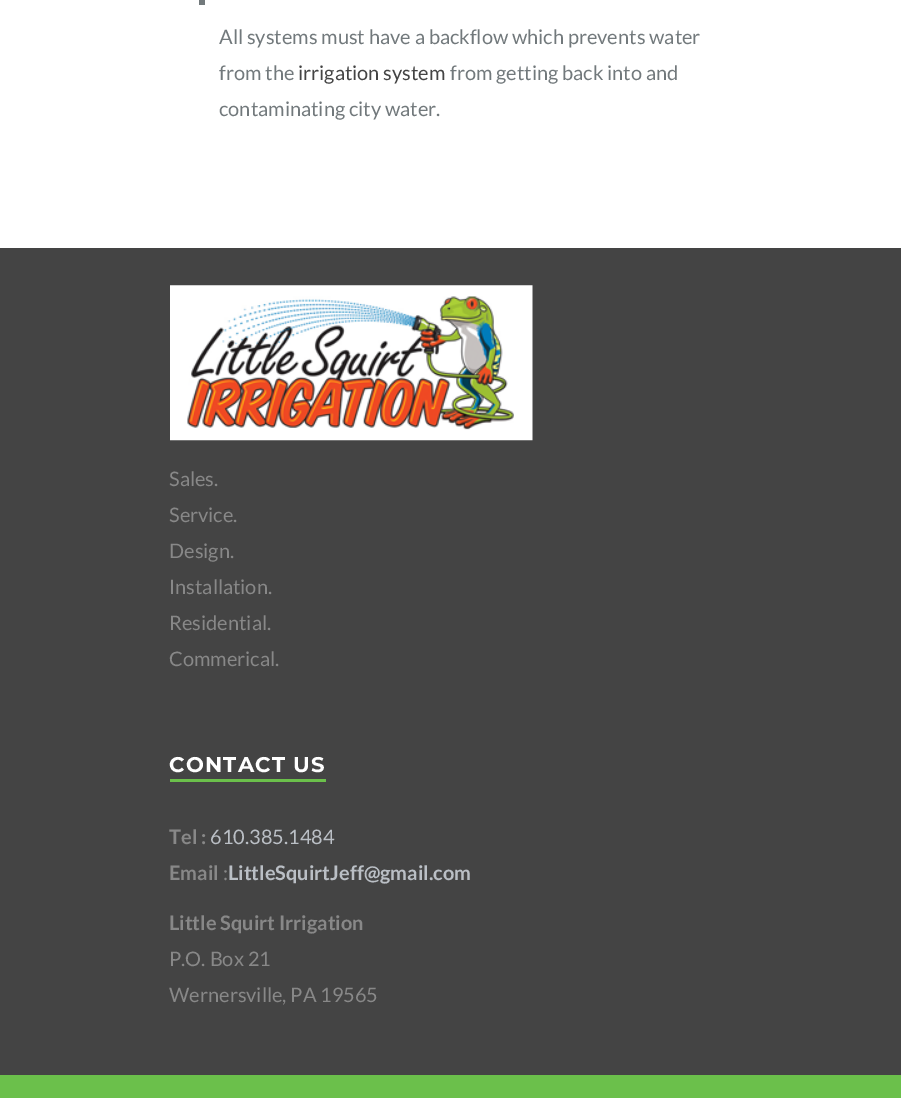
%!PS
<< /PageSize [901 1098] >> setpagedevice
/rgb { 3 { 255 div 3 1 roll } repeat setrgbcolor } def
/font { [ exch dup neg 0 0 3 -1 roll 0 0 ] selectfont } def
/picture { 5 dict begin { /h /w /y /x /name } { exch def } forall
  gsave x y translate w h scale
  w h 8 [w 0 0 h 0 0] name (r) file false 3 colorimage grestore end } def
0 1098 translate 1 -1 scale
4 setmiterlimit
255 255 255 rgb
0 0 901 1098 rectfill
114 121 124 rgb
199 0 6 5 rectfill
68 68 68 rgb
0 248 901 827 rectfill
(img/1.rgb) 170 285 363 156 picture
107 192 75 rgb
170 779 156 3 rectfill
0 1075 901 23 rectfill
/Lato-Regular 20 font
114 121 124 rgb
219 44 moveto (All systems must have a backflow which prevents water) show
219 80 moveto (from the) show
68 68 68 rgb
298 80 moveto (irrigation system) show
114 121 124 rgb
450 80 moveto (from getting back into and) show
219 116 moveto (contaminating city water.) show
136 136 136 rgb
[
  [(Sales.) 169 486]
  [(Service.) 169 522]
  [(Design.) 169 558]
  [(Installation.) 169 594]
  [(Residential.) 169 630]
  [(Commerical.) 169 666]
] { aload pop moveto show } forall
/Montserrat-Bold 21.25 font
255 255 255 rgb
169 772 moveto 1.25 0 (CONTACT US) ashow
/Lato-Bold 20 font
136 136 136 rgb
169 844 moveto (Tel :) show
/Lato-Regular 20 font
186 191 197 rgb
210 844 moveto (610.385.1484) show
/Lato-Bold 20 font
136 136 136 rgb
169 880 moveto (Email) show
/Lato-Regular 20 font
223 880 moveto (:) show
/Lato-Bold 20 font
186 191 197 rgb
228 880 moveto (LittleSquirtJeff@gmail.com) show
136 136 136 rgb
169 930 moveto (Little Squirt Irrigation) show
/Lato-Regular 20 font
169 966 moveto (P.O. Box 21) show
169 1002 moveto (Wernersville, PA 19565) show
showpage
